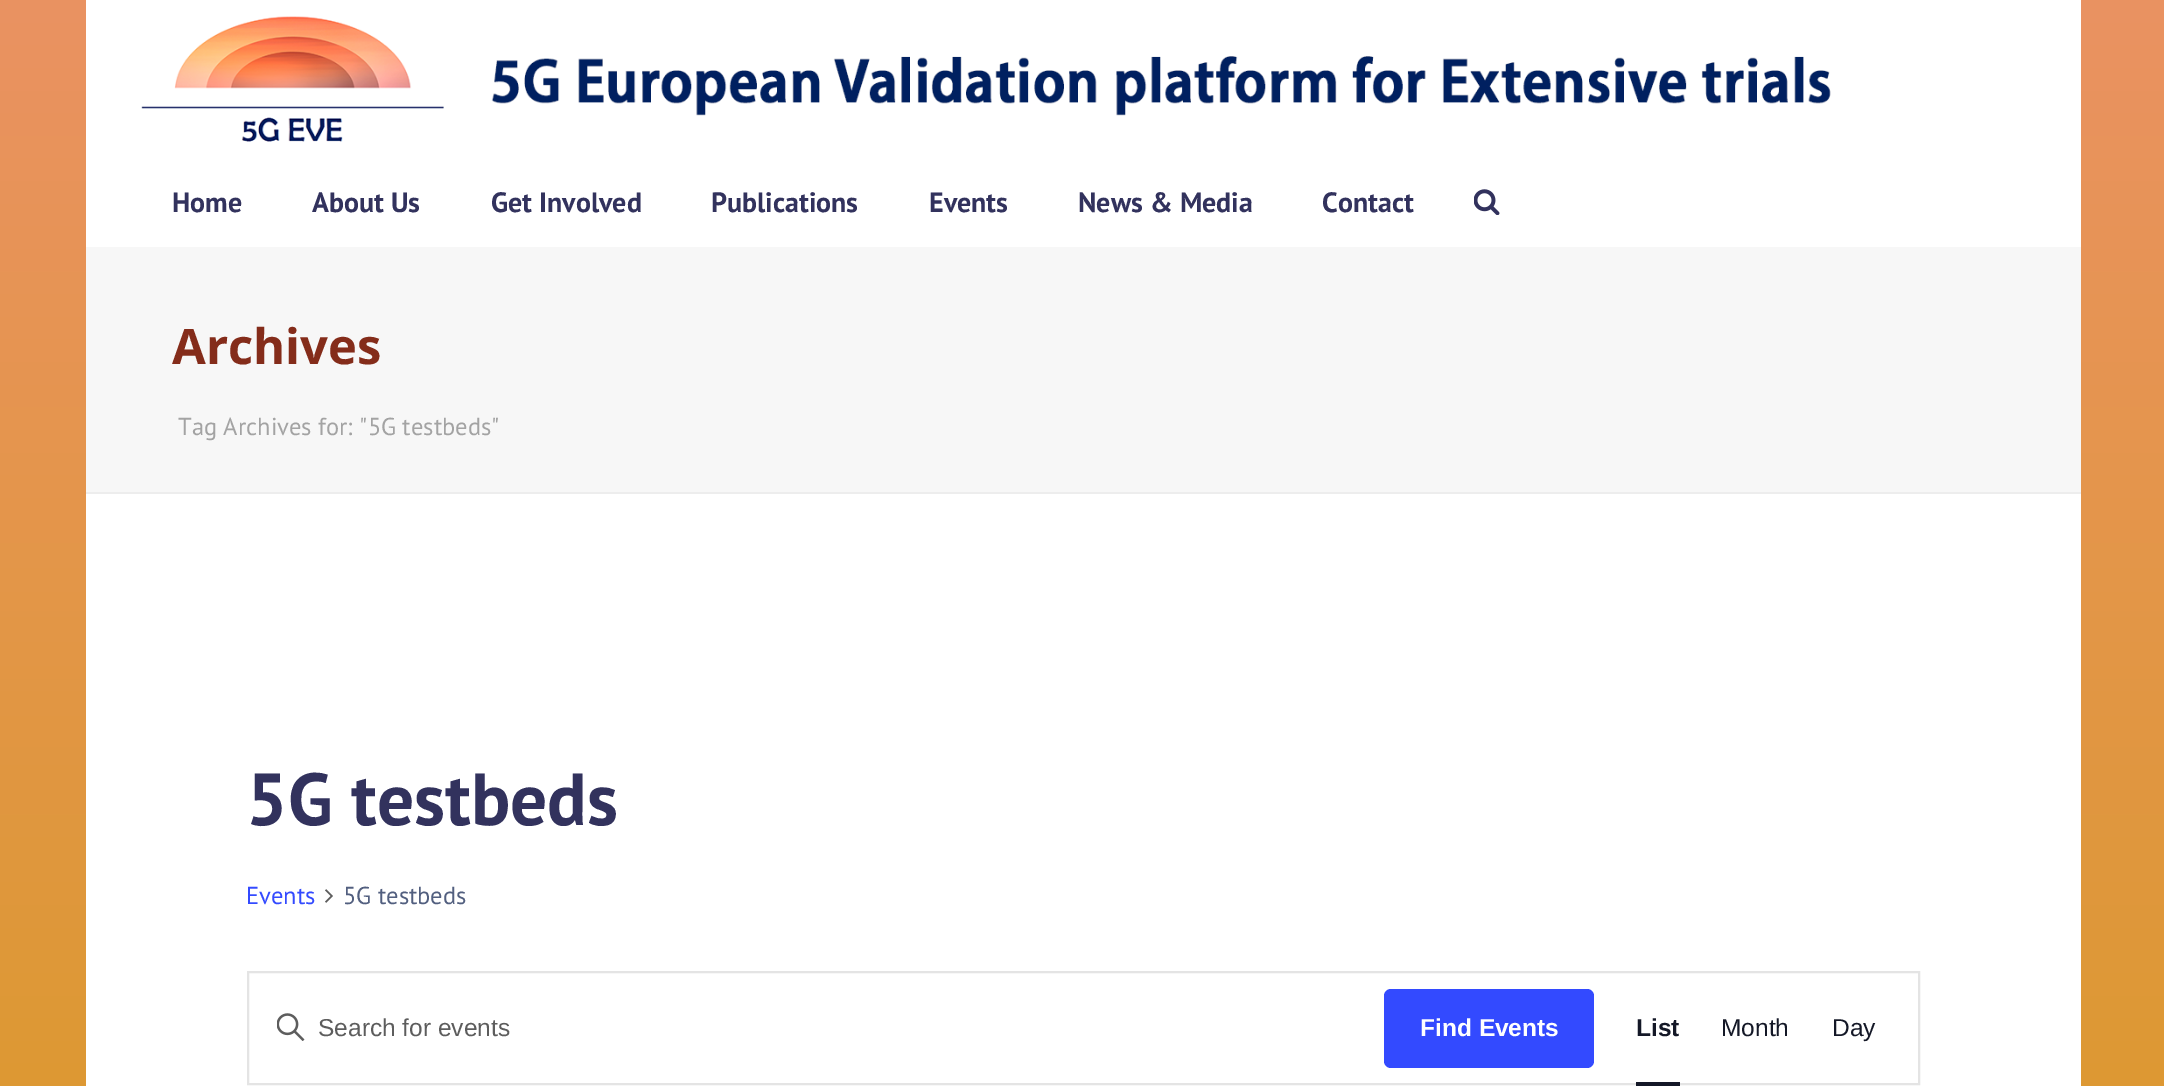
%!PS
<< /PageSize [2164 1086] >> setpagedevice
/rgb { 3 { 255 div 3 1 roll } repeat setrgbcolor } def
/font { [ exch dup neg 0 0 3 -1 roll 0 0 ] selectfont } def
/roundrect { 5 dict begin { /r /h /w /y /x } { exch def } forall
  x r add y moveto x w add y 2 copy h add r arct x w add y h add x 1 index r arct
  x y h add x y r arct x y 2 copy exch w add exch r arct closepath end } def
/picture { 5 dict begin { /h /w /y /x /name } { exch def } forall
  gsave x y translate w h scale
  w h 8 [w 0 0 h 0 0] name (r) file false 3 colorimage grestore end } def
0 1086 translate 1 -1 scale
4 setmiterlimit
255 255 255 rgb
0 0 2164 1086 rectfill
gsave 0 0 moveto 2164 0 lineto 2164 1086 lineto 0 1086 lineto closepath clip newpath
<< /ShadingType 2 /ColorSpace /DeviceRGB /Coords [1082 0 1082 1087] /Extend [true true] /Function << /FunctionType 2 /Domain [0 1] /C0 [0.918 0.573 0.384] /C1 [0.867 0.6 0.2] /N 1 >> >> shfill grestore
[
  [86 247 1995 245 247 247 247]
  [86 492 1995 2 237 237 237]
  [86 0 1995 247 255 255 255]
] { aload pop rgb rectfill } forall
(img/1.rgb) 141 16 1690 126 picture
(img/2.rgb) 1474 189 26 26 picture
86 494 1995 592 rectfill
(img/3.rgb) 325 889 8 14 picture
228 228 228 rgb
2 setlinewidth
248 972 1671 112 rectstroke
(img/4.rgb) 277 1013 28 28 picture
51 74 255 rgb
1384 989 210 79 7 roundrect fill
20 24 39 rgb
1636 1082 44 4 rectfill
/PTSans-Bold 28 font
50 50 93 rgb
[
  [(Home) 172 212]
  [(About Us) 312 212]
  [(Get Involved) 491 212]
  [(Publications) 711 212]
  [(Events) 929 212]
  [(News & Media) 1078 212]
  [(Contact) 1322 212]
] { aload pop moveto show } forall
/OpenSans-Bold 49 font
132 44 26 rgb
172 364 moveto (Archives) show
/PTSans-Regular 24.5 font
163 163 163 rgb
178 435 moveto (Tag Archives for: "5G testbeds") show
/PTSans-Bold 73.5 font
50 50 93 rgb
246 825 moveto (5G testbeds) show
/PTSans-Regular 24.5 font
51 74 255 rgb
246 904 moveto (Events) show
82 95 127 rgb
343 904 moveto (5G testbeds) show
/LiberationSans-Regular 24.5 font
93 93 93 rgb
318 1036 moveto (Search for events) show
/LiberationSans-Bold 24.5 font
255 255 255 rgb
1420 1036 moveto (Find Events) show
20 24 39 rgb
1636 1036 moveto (List) show
/LiberationSans-Regular 24.5 font
1721 1036 moveto (Month) show
1832 1036 moveto (Day) show
showpage
